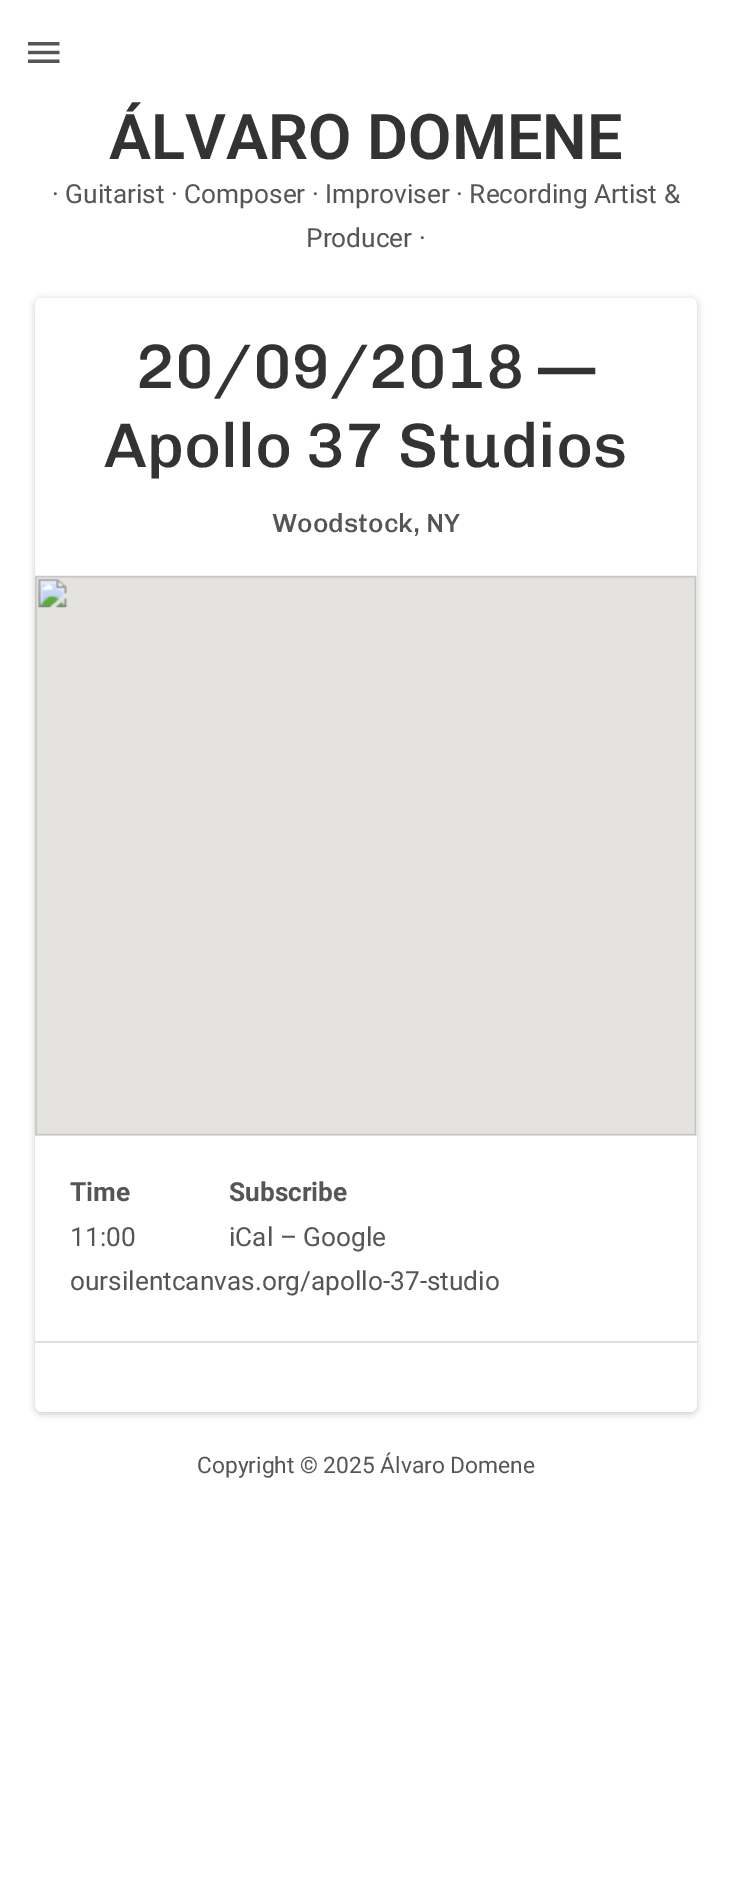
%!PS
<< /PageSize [731 1894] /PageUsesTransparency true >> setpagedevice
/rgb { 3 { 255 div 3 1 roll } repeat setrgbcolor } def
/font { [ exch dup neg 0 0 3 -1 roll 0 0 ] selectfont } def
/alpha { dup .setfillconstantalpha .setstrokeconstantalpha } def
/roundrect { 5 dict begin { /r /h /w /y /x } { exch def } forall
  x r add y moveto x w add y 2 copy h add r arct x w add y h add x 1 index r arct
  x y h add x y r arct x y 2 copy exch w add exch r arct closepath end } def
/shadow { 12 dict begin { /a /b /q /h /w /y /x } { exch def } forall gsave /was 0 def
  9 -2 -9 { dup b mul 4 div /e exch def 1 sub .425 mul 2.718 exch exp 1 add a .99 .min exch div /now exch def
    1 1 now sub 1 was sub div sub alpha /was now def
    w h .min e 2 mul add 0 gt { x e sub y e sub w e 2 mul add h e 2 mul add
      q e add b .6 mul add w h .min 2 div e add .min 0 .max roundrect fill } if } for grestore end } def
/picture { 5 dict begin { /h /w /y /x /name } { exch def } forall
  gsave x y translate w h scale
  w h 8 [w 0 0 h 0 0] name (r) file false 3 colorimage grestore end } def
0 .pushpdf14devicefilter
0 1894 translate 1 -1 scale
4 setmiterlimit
255 255 255 rgb
0 0 731 1894 rectfill
(img/1.rgb) 28 42 32 21 picture
0 0 0 rgb
35 299 662 1115 7 3.5 0.2 shadow
255 255 255 rgb
35 298 662 1114 7 roundrect fill
(img/2.rgb) 35 575 662 561 picture
224 224 224 rgb
35 1341 662 2 rectfill
/Roboto-SemiBold 63 font
51 51 51 rgb
109 159 moveto (ÁLVARO DOMENE) show
/Roboto-Regular 26.25 font
85 85 85 rgb
52 203 moveto (· Guitarist · Composer · Improviser · Recording Artist &) show
306 247 moveto (Producer ·) show
/Chivo-Medium 63 font
51 51 51 rgb
136 388 moveto (20/09/2018 —) show
104 467 moveto (Apollo 37 Studios) show
/Chivo-Medium 26.25 font
85 85 85 rgb
272 532 moveto (Woodstock, NY) show
/Roboto-Bold 26.25 font
70 1201 moveto (Time) show
/Roboto-Regular 26.25 font
70 1246 moveto (11:00) show
/Roboto-Bold 26.25 font
229 1201 moveto (Subscribe) show
/Roboto-Regular 26.25 font
229 1246 moveto (iCal – Google) show
70 1290 moveto (oursilentcanvas.org/apollo-37-studio) show
/Roboto-Regular 22.75 font
197 1473 moveto (Copyright © 2025 Álvaro Domene) show
.poppdf14devicefilter showpage
